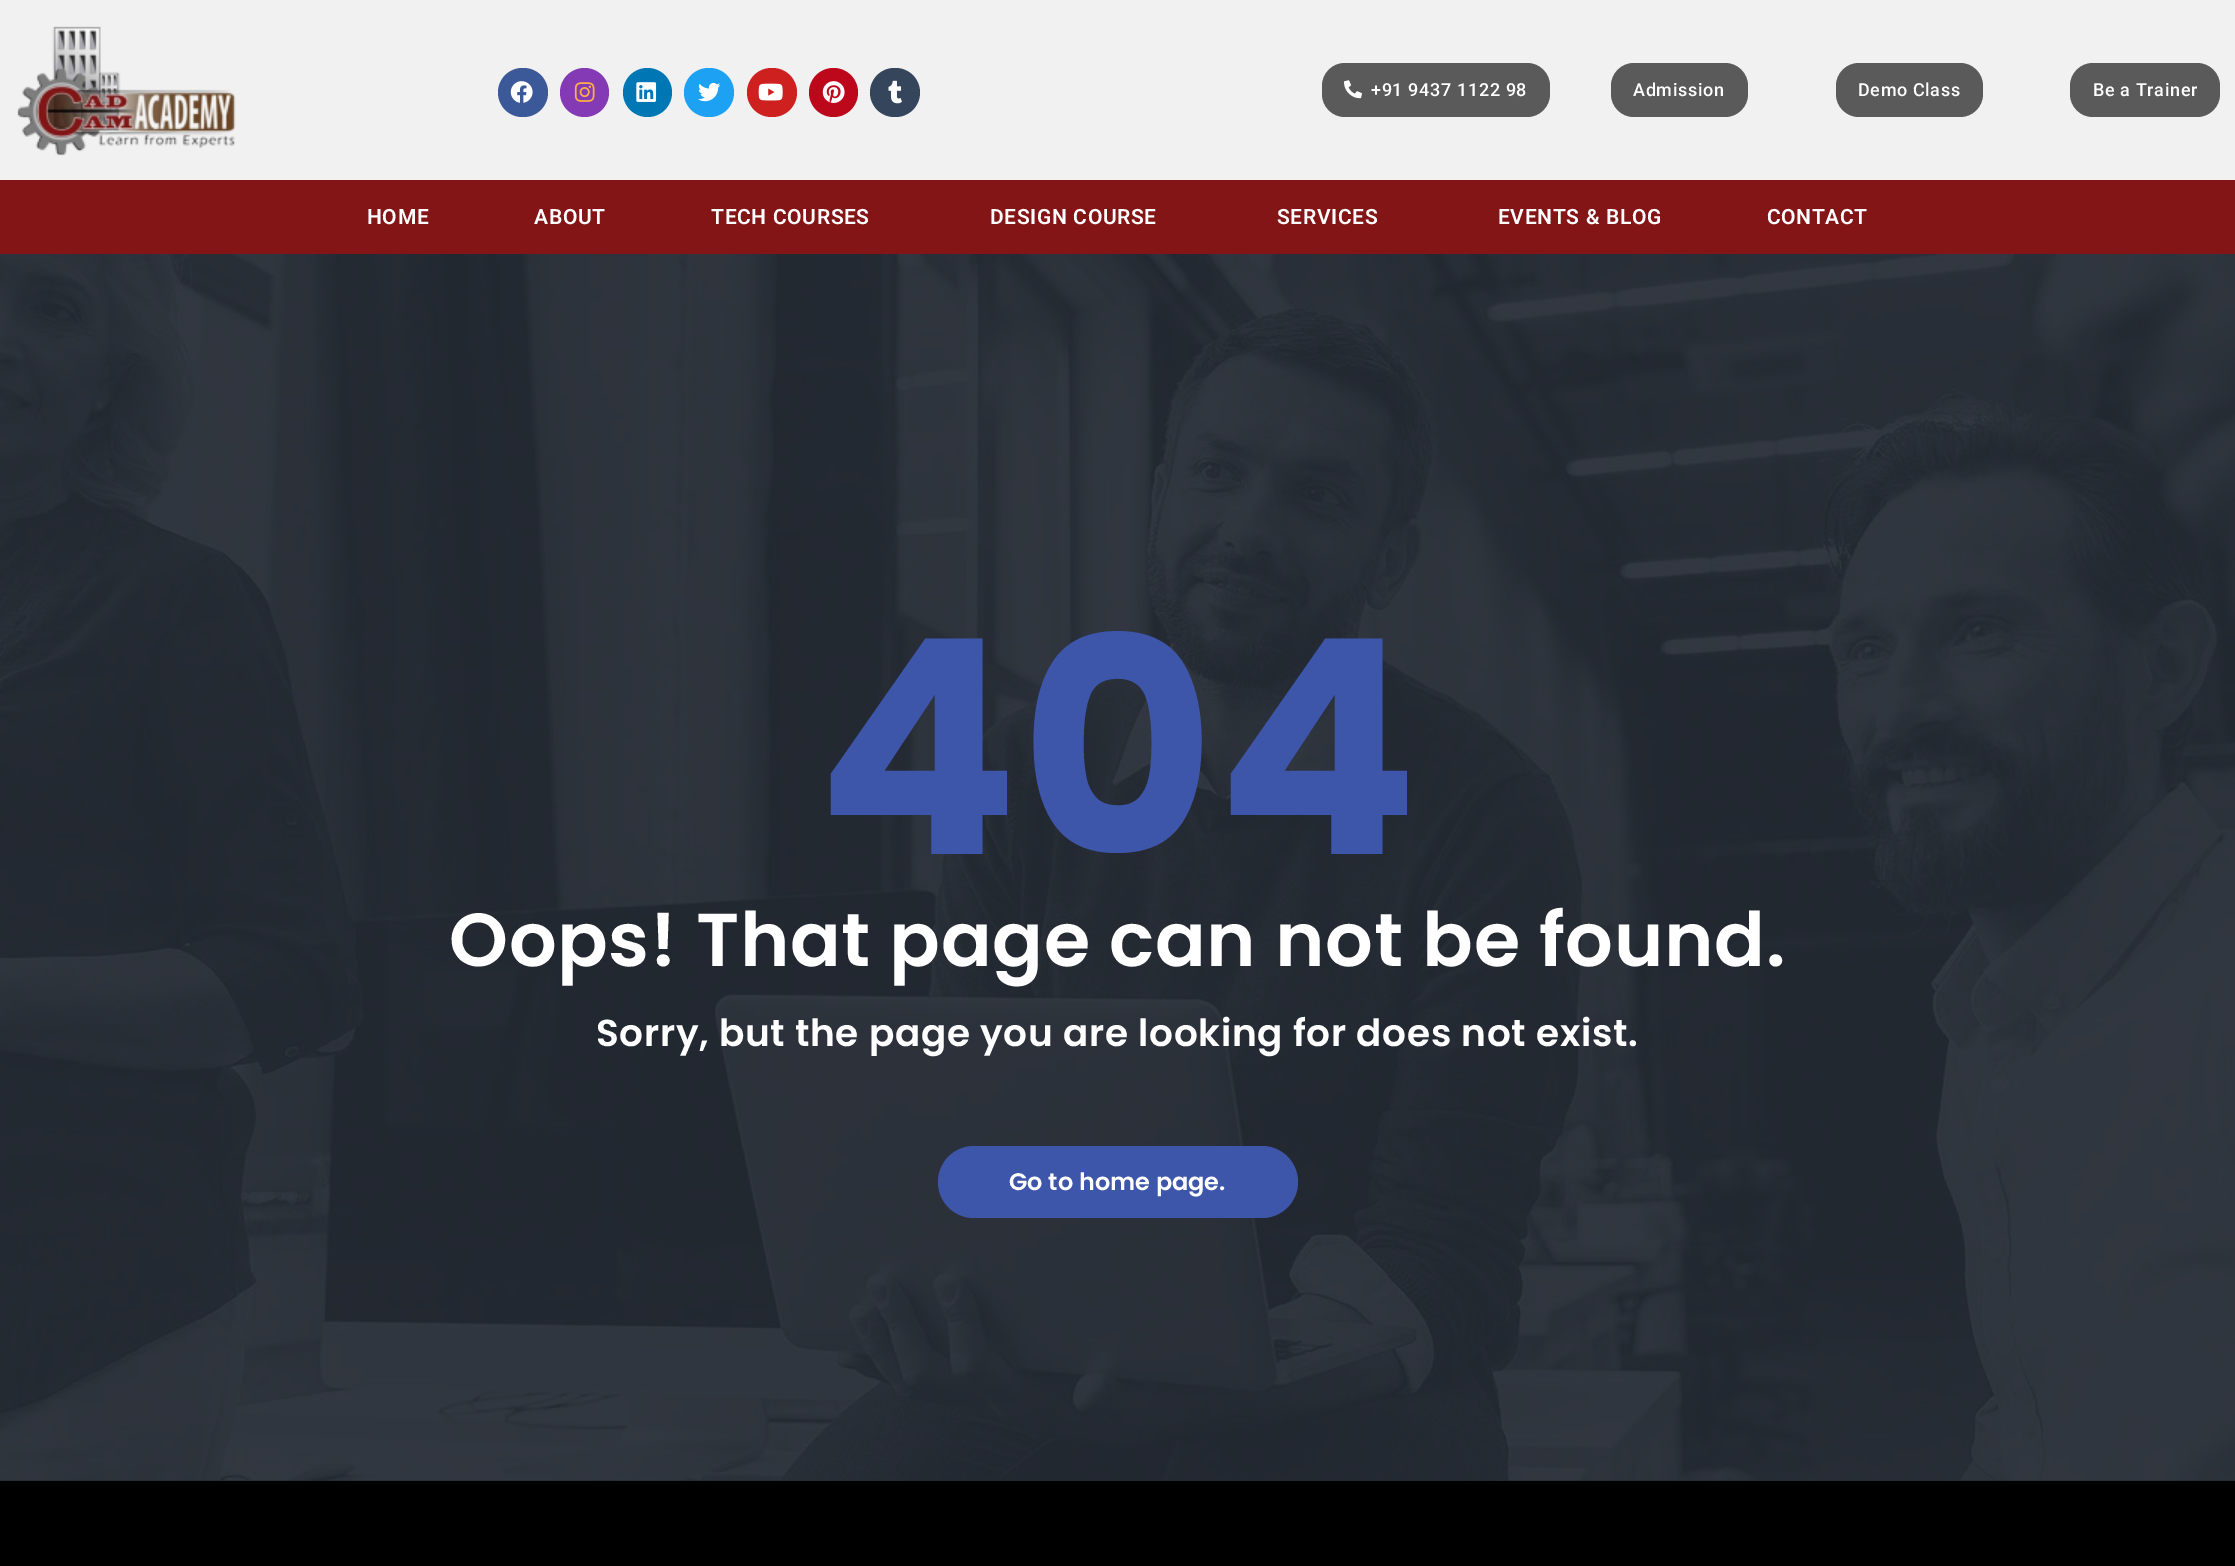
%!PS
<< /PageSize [2235 1566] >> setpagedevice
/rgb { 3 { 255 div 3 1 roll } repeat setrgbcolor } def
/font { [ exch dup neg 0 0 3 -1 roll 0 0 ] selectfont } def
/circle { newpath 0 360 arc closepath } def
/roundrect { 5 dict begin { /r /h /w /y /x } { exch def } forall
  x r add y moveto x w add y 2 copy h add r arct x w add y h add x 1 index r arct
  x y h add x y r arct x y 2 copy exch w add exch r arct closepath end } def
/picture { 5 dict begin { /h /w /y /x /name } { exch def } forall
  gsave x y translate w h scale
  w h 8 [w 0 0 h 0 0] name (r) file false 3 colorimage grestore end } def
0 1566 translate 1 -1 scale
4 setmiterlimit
36 40 47 rgb
0 0 2235 1566 rectfill
241 241 241 rgb
0 0 2235 180 rectfill
(img/1.rgb) 17 26 219 130 picture
59 89 152 rgb
498 68 50 49 24.5 roundrect fill
(img/2.rgb) 510 81 23 22 picture
131 58 180 rgb
584.5 92.5 24.5 circle fill
(img/3.rgb) 574 82 21 20 picture
0 119 181 rgb
647.5 92.5 24.5 circle fill
(img/4.rgb) 636 82 21 20 picture
29 161 242 rgb
684 68 50 49 24.5 roundrect fill
(img/5.rgb) 698 82 23 20 picture
205 32 31 rgb
747 68 50 49 24.5 roundrect fill
(img/6.rgb) 758 83 25 18 picture
189 8 28 rgb
833.5 92.5 24.5 circle fill
(img/7.rgb) 822 81 23 22 picture
53 70 92 rgb
870 68 50 49 24.5 roundrect fill
(img/8.rgb) 888 80 14 24 picture
91 90 90 rgb
1322 63 228 54 23 roundrect fill
(img/9.rgb) 1344 80 18 19 picture
1611 63 137 54 23 roundrect fill
1836 63 147 54 23 roundrect fill
2070 63 150 54 23 roundrect fill
131 21 23 rgb
0 180 2235 74 rectfill
(img/10.rgb) 0 254 2235 1227 picture
62 86 170 rgb
938 1146 360 72 36 roundrect fill
0 0 0 rgb
0 1481 2235 85 rectfill
/Roboto-Medium 18 font
255 255 255 rgb
1371 96 moveto 0.63 0 (+91 9437 1122 98) ashow
1633 96 moveto 0.63 0 (Admission) ashow
1858 96 moveto 0.63 0 (Demo Class) ashow
2093 96 moveto 0.63 0 (Be a Trainer) ashow
/Roboto-SemiBold 21 font
367 224 moveto 0.63 0 (HOME) ashow
534 224 moveto 0.63 0 (ABOUT) ashow
711 224 moveto 0.63 0 (TECH COURSES) ashow
990 224 moveto 0.63 0 (DESIGN COURSE) ashow
1277 224 moveto 0.63 0 (SERVICES) ashow
1498 224 moveto 0.63 0 (EVENTS & BLOG) ashow
1767 224 moveto 0.63 0 (CONTACT) ashow
/Poppins-Bold 300 font
62 86 170 rgb
816 854 moveto 0.63 0 (404) ashow
/Poppins-SemiBold 75 font
255 255 255 rgb
449 966 moveto 0.63 0 (Oops! That page can not be found.) ashow
/Poppins-SemiBold 37.5 font
596 1046 moveto 0.63 0 (Sorry, but the page you are looking for does not exist.) ashow
/Poppins-SemiBold 24 font
1009 1190 moveto (Go to home page.) show
showpage
